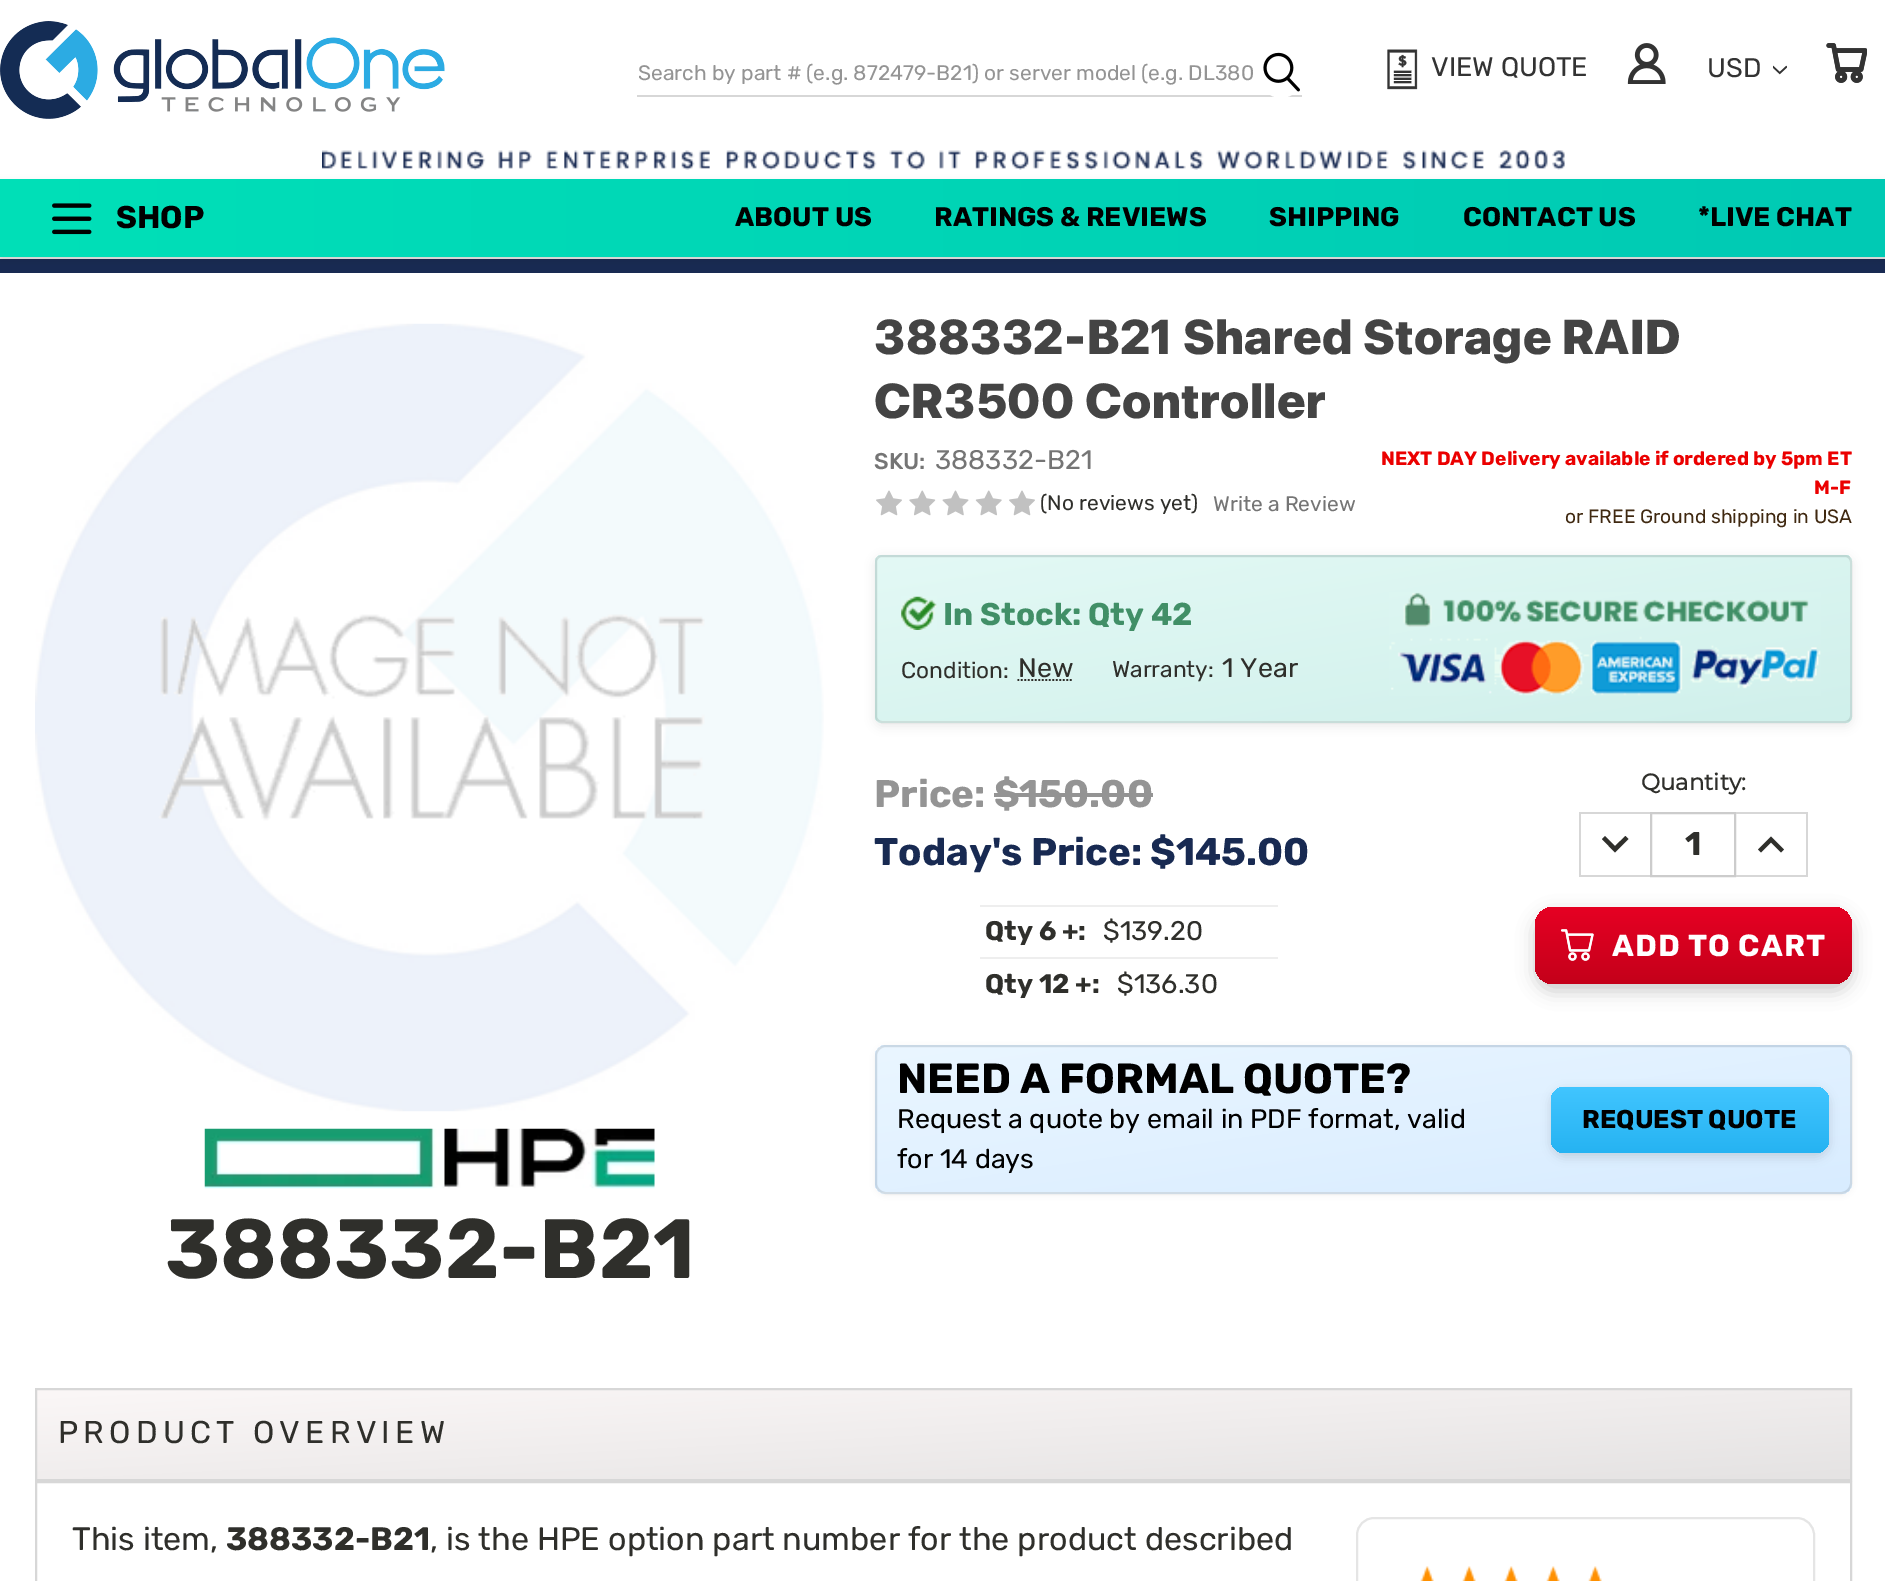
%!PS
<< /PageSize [1885 1581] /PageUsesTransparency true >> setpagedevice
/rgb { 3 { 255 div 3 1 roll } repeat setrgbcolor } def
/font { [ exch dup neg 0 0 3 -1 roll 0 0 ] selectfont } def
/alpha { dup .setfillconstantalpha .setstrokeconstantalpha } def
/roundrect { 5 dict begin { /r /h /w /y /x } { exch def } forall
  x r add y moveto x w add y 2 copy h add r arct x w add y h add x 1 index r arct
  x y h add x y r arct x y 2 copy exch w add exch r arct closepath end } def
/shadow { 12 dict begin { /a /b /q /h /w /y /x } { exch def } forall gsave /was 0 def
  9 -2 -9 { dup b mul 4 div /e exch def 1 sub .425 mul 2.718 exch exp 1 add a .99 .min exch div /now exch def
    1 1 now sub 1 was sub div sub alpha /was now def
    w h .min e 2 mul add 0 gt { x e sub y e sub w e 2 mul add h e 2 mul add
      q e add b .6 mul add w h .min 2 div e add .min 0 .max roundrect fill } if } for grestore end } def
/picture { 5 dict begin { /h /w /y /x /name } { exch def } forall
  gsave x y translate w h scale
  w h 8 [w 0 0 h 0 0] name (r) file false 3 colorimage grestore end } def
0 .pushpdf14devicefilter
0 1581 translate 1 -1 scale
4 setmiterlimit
255 255 255 rgb
0 0 1885 1581 rectfill
229 229 229 rgb
0 257 1885 2 rectfill
(img/1.rgb) 0 21 445 98 picture
215 215 215 rgb
637 95 665 2 rectfill
255 255 255 rgb
1260 51 42 47 21 roundrect fill
(img/2.rgb) 1263 52 37 40 picture
(img/3.rgb) 1387 49 31 41 picture
(img/4.rgb) 1627 43 39 41 picture
(img/5.rgb) 1773 65 14 10 picture
(img/6.rgb) 1826 43 41 40 picture
(img/7.rgb) 322 150 1243 20 picture
24 42 82 rgb
0 259 1885 14 rectfill
0 0 0 rgb
0 182 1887 79 0 3.5 0.08 shadow
gsave 0 179 moveto 1885 179 lineto 1885 257 lineto 0 257 lineto closepath clip newpath
<< /ShadingType 2 /ColorSpace /DeviceRGB /Coords [0 218 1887 218] /Extend [true true] /Function << /FunctionType 2 /Domain [0 1] /C0 [0 0.878 0.722] /C1 [0 0.792 0.706] /N 1 >> >> shfill grestore
(img/8.rgb) 52 203 40 32 picture
(img/9.rgb) 876 490 26 26 picture
(img/10.rgb) 909 490 27 26 picture
(img/11.rgb) 942 490 27 26 picture
(img/12.rgb) 975 490 27 26 picture
(img/9.rgb) 1009 490 26 26 picture
875 558 977 168 7 5 0.08 shadow
gsave
875 555 977 168 7 roundrect clip newpath
gsave 877 555 moveto 1850 555 lineto 1850 557 lineto 877 557 lineto closepath clip newpath
<< /ShadingType 2 /ColorSpace /DeviceRGB /Coords [1336 314 1390 634] /Extend [true true] /Function << /FunctionType 2 /Domain [0 1] /C0 [0.89 0.976 0.961] /C1 [0.816 0.941 0.922] /N 1 >> >> shfill grestore
gsave 875 557 moveto 877 557 lineto 877 721 lineto 875 721 lineto closepath clip newpath
<< /ShadingType 2 /ColorSpace /DeviceRGB /Coords [363 479 417 799] /Extend [true true] /Function << /FunctionType 2 /Domain [0 1] /C0 [0.89 0.976 0.961] /C1 [0.816 0.941 0.922] /N 1 >> >> shfill grestore
grestore
gsave 877 557 moveto 1850 557 lineto 1850 721 lineto 877 721 lineto closepath clip newpath
<< /ShadingType 2 /ColorSpace /DeviceRGB /Coords [1336 479 1390 799] /Extend [true true] /Function << /FunctionType 2 /Domain [0 1] /C0 [0.89 0.976 0.961] /C1 [0.816 0.941 0.922] /N 1 >> >> shfill grestore
gsave
875 555 977 168 7 roundrect clip newpath
gsave 1850 557 moveto 1852 557 lineto 1852 721 lineto 1850 721 lineto closepath clip newpath
<< /ShadingType 2 /ColorSpace /DeviceRGB /Coords [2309 479 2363 799] /Extend [true true] /Function << /FunctionType 2 /Domain [0 1] /C0 [0.89 0.976 0.961] /C1 [0.816 0.941 0.922] /N 1 >> >> shfill grestore
gsave 877 721 moveto 1850 721 lineto 1850 723 lineto 877 723 lineto closepath clip newpath
<< /ShadingType 2 /ColorSpace /DeviceRGB /Coords [1336 643 1390 963] /Extend [true true] /Function << /FunctionType 2 /Domain [0 1] /C0 [0.89 0.976 0.961] /C1 [0.816 0.941 0.922] /N 1 >> >> shfill grestore
grestore
0.1 alpha
2 setlinewidth
876 556 975 166 6 roundrect stroke
1 alpha
(img/13.rgb) 901 596 36 34 picture
47 47 43 rgb
1.8 setlinewidth
[1.75 1.75] 0 setdash
1017.5 680 moveto 1073 680 lineto stroke
(img/14.rgb) 1389 592 432 104 picture
[
  [994 793 159 4 148 148 148]
  [980 905 298 2 238 238 238]
  [980 957 298 2 238 238 238]
  [1579 812 71 2 215 215 215]
  [1579 875 71 2 215 215 215]
  [1579 812 2 65 215 215 215]
] { aload pop rgb rectfill } forall
47 47 43 rgb
1605 836 moveto 1615 846 lineto 1625.5 836 lineto 1628.5 839 lineto 1615 852.5 lineto 1602 839 lineto closepath fill
204 204 204 rgb
2 setlinewidth
[] 0 setdash
1651 813 84 63 rectstroke
[
  [1736 812 72 2 215 215 215]
  [1806 812 2 65 215 215 215]
  [1736 875 72 2 215 215 215]
] { aload pop rgb rectfill } forall
47 47 43 rgb
1761 852.5 moveto 1771 842.5 lineto 1781 852.5 lineto 1784 849.5 lineto 1771 836.5 lineto 1758 849.5 lineto closepath fill
0 0 0 rgb
1535 914 317 77 18 9 0.2 shadow
gsave 1535 907 317 77 18 roundrect clip newpath
<< /ShadingType 2 /ColorSpace /DeviceRGB /Coords [1693 907 1693 984] /Extend [true true] /Function << /FunctionType 2 /Domain [0 1] /C0 [0.902 0 0.137] /C1 [0.769 0 0.102] /N 1 >> >> shfill grestore
(img/15.rgb) 1561 929 33 32 picture
875 1047 977 148 11 3.5 0.06 shadow
gsave
875 1045 977 149 11 roundrect clip newpath
gsave 877 1045 moveto 1850 1045 lineto 1850 1047 lineto 877 1047 lineto closepath clip newpath
<< /ShadingType 2 /ColorSpace /DeviceRGB /Coords [1342 832 1384 1116] /Extend [true true] /Function << /FunctionType 2 /Domain [0 1] /C0 [0.918 0.965 1] /C1 [0.847 0.925 1] /N 1 >> >> shfill grestore
gsave 875 1047 moveto 877 1047 lineto 877 1192 lineto 875 1192 lineto closepath clip newpath
<< /ShadingType 2 /ColorSpace /DeviceRGB /Coords [369 977 411 1261] /Extend [true true] /Function << /FunctionType 2 /Domain [0 1] /C0 [0.918 0.965 1] /C1 [0.847 0.925 1] /N 1 >> >> shfill grestore
gsave 877 1047 moveto 1850 1047 lineto 1850 1192 lineto 877 1192 lineto closepath clip newpath
<< /ShadingType 2 /ColorSpace /DeviceRGB /Coords [1342 977 1384 1261] /Extend [true true] /Function << /FunctionType 2 /Domain [0 1] /C0 [0.918 0.965 1] /C1 [0.847 0.925 1] /N 1 >> >> shfill grestore
gsave 1850 1047 moveto 1852 1047 lineto 1852 1192 lineto 1850 1192 lineto closepath clip newpath
<< /ShadingType 2 /ColorSpace /DeviceRGB /Coords [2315 977 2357 1261] /Extend [true true] /Function << /FunctionType 2 /Domain [0 1] /C0 [0.918 0.965 1] /C1 [0.847 0.925 1] /N 1 >> >> shfill grestore
gsave 877 1192 moveto 1850 1192 lineto 1850 1194 lineto 877 1194 lineto closepath clip newpath
<< /ShadingType 2 /ColorSpace /DeviceRGB /Coords [1342 1122 1384 1406] /Extend [true true] /Function << /FunctionType 2 /Domain [0 1] /C0 [0.918 0.965 1] /C1 [0.847 0.925 1] /N 1 >> >> shfill grestore
grestore
0.1 alpha
876 1046 975 147 10 roundrect stroke
1 alpha
1551 1090 278 67 14 5 0.12 shadow
gsave 1551 1087 278 66 14 roundrect clip newpath
<< /ShadingType 2 /ColorSpace /DeviceRGB /Coords [1690 1087 1690 1153] /Extend [true true] /Function << /FunctionType 2 /Domain [0 1] /C0 [0.255 0.773 1] /C1 [0.149 0.702 0.949] /N 1 >> >> shfill grestore
(img/16.rgb) 35 323 789 789 picture
(img/17.rgb) 204 1128 451 61 picture
gsave 37 1390 moveto 1850 1390 lineto 1850 1479 lineto 37 1479 lineto closepath clip newpath
<< /ShadingType 2 /ColorSpace /DeviceRGB /Coords [939 1345 948 1523] /Extend [true true] /Function << /FunctionType 2 /Domain [0 1] /C0 [0.984 0.969 0.969] /C1 [0.898 0.89 0.89] /N 1 >> >> shfill grestore
215 215 215 rgb
36 1389 1815 91 rectstroke
36 1482 1815 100 rectstroke
0.1 alpha
0 0 0 rgb
1357 1518 457 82 17 roundrect stroke
1 alpha
(img/18.rgb) 1420 1566 14 15 picture
(img/19.rgb) 1462 1566 14 15 picture
(img/19.rgb) 1504 1566 14 15 picture
(img/19.rgb) 1546 1566 14 15 picture
(img/18.rgb) 1588 1566 14 15 picture
/Rubik-Regular 21 font
148 148 148 rgb
638 80 moveto (Search by part # \(e.g. 872479-B21\) or server model \(e.g. DL380) show
/Rubik-Regular 26.95 font
51 51 51 rgb
1431 76 moveto (VIEW QUOTE) show
1707 77 moveto (USD) show
/Rubik-Bold 31.5 font
0 0 0 rgb
116 228 moveto (SHOP) show
/Rubik-Bold 26.95 font
[
  [(ABOUT US) 735 226]
  [(RATINGS & REVIEWS) 934 226]
  [(SHIPPING) 1269 226]
  [(CONTACT US) 1463 226]
  [(*LIVE CHAT) 1698 226]
] { aload pop moveto show } forall
/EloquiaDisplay-ExtraBold 49 font
68 68 68 rgb
874 354 moveto 0.45 0 (388332-B21 Shared Storage RAID) ashow
874 418 moveto 0.45 0 (CR3500 Controller) ashow
/Rubik-Medium 22.75 font
117 117 117 rgb
874 469 moveto (SKU:) show
/Rubik-Regular 26.95 font
935 469 moveto (388332-B21) show
/Rubik-Regular 21 font
47 47 43 rgb
1040 510 moveto (\(No reviews yet\)) show
117 117 117 rgb
1213 511 moveto (Write a Review) show
/Rubik-Bold 19.25 font
235 0 0 rgb
1381 465 moveto (NEXT DAY Delivery available if ordered by 5pm ET) show
1814 494 moveto (M-F) show
/Rubik-Regular 19.25 font
64 41 17 rgb
1565 523 moveto (or FREE Ground shipping in USA) show
/Rubik-Bold 31.5 font
65 143 103 rgb
943 625 moveto (In Stock: Qty 42) show
/Rubik-Regular 22.75 font
47 47 43 rgb
901 678 moveto (Condition:) show
/Rubik-Regular 26.95 font
1018 677 moveto (New) show
/Rubik-Regular 22.75 font
1112 677 moveto (Warranty:) show
/Rubik-Regular 26.95 font
1222 677 moveto (1 Year) show
/Rubik-Bold 38.5 font
148 148 148 rgb
874 807 moveto (Price: $150.00) show
24 42 82 rgb
874 865 moveto (Today's Price: $145.00) show
/Rubik-Bold 26.95 font
47 47 43 rgb
985 940 moveto (Qty 6 +:) show
/Rubik-Regular 26.95 font
1103 940 moveto ($139.20) show
/Rubik-Bold 26.95 font
985 993 moveto (Qty 12 +:) show
/Rubik-Regular 26.95 font
1117 993 moveto ($136.30) show
/Montserrat-Bold 22.75 font
1641 790 moveto (Quantity:) show
/Rubik-Bold 33 font
1685 855 moveto (1) show
/Rubik-Bold 30.5 font
255 255 255 rgb
1612 956 moveto 1 0 (ADD TO CART) ashow
/Rubik-Bold 42 font
0 0 0 rgb
897 1093 moveto (NEED A FORMAL QUOTE?) show
/Rubik-Regular 26.95 font
897 1128 moveto (Request a quote by email in PDF format, valid) show
897 1168 moveto (for 14 days) show
/Rubik-Bold 25.75 font
1582 1128 moveto (REQUEST QUOTE) show
/Rubik-Bold 84 font
47 47 43 rgb
165 1278 moveto (388332-B21) show
/Rubik-Regular 31.5 font
58 1443 moveto 5.25 0 (PRODUCT OVERVIEW) ashow
/Rubik-Regular 32.35 font
72 1550 moveto (This item,) show
/Rubik-Bold 32.35 font
226 1550 moveto (388332-B21) show
/Rubik-Regular 32.35 font
430 1550 moveto (, is the HPE option part number for the product described) show
.poppdf14devicefilter showpage
